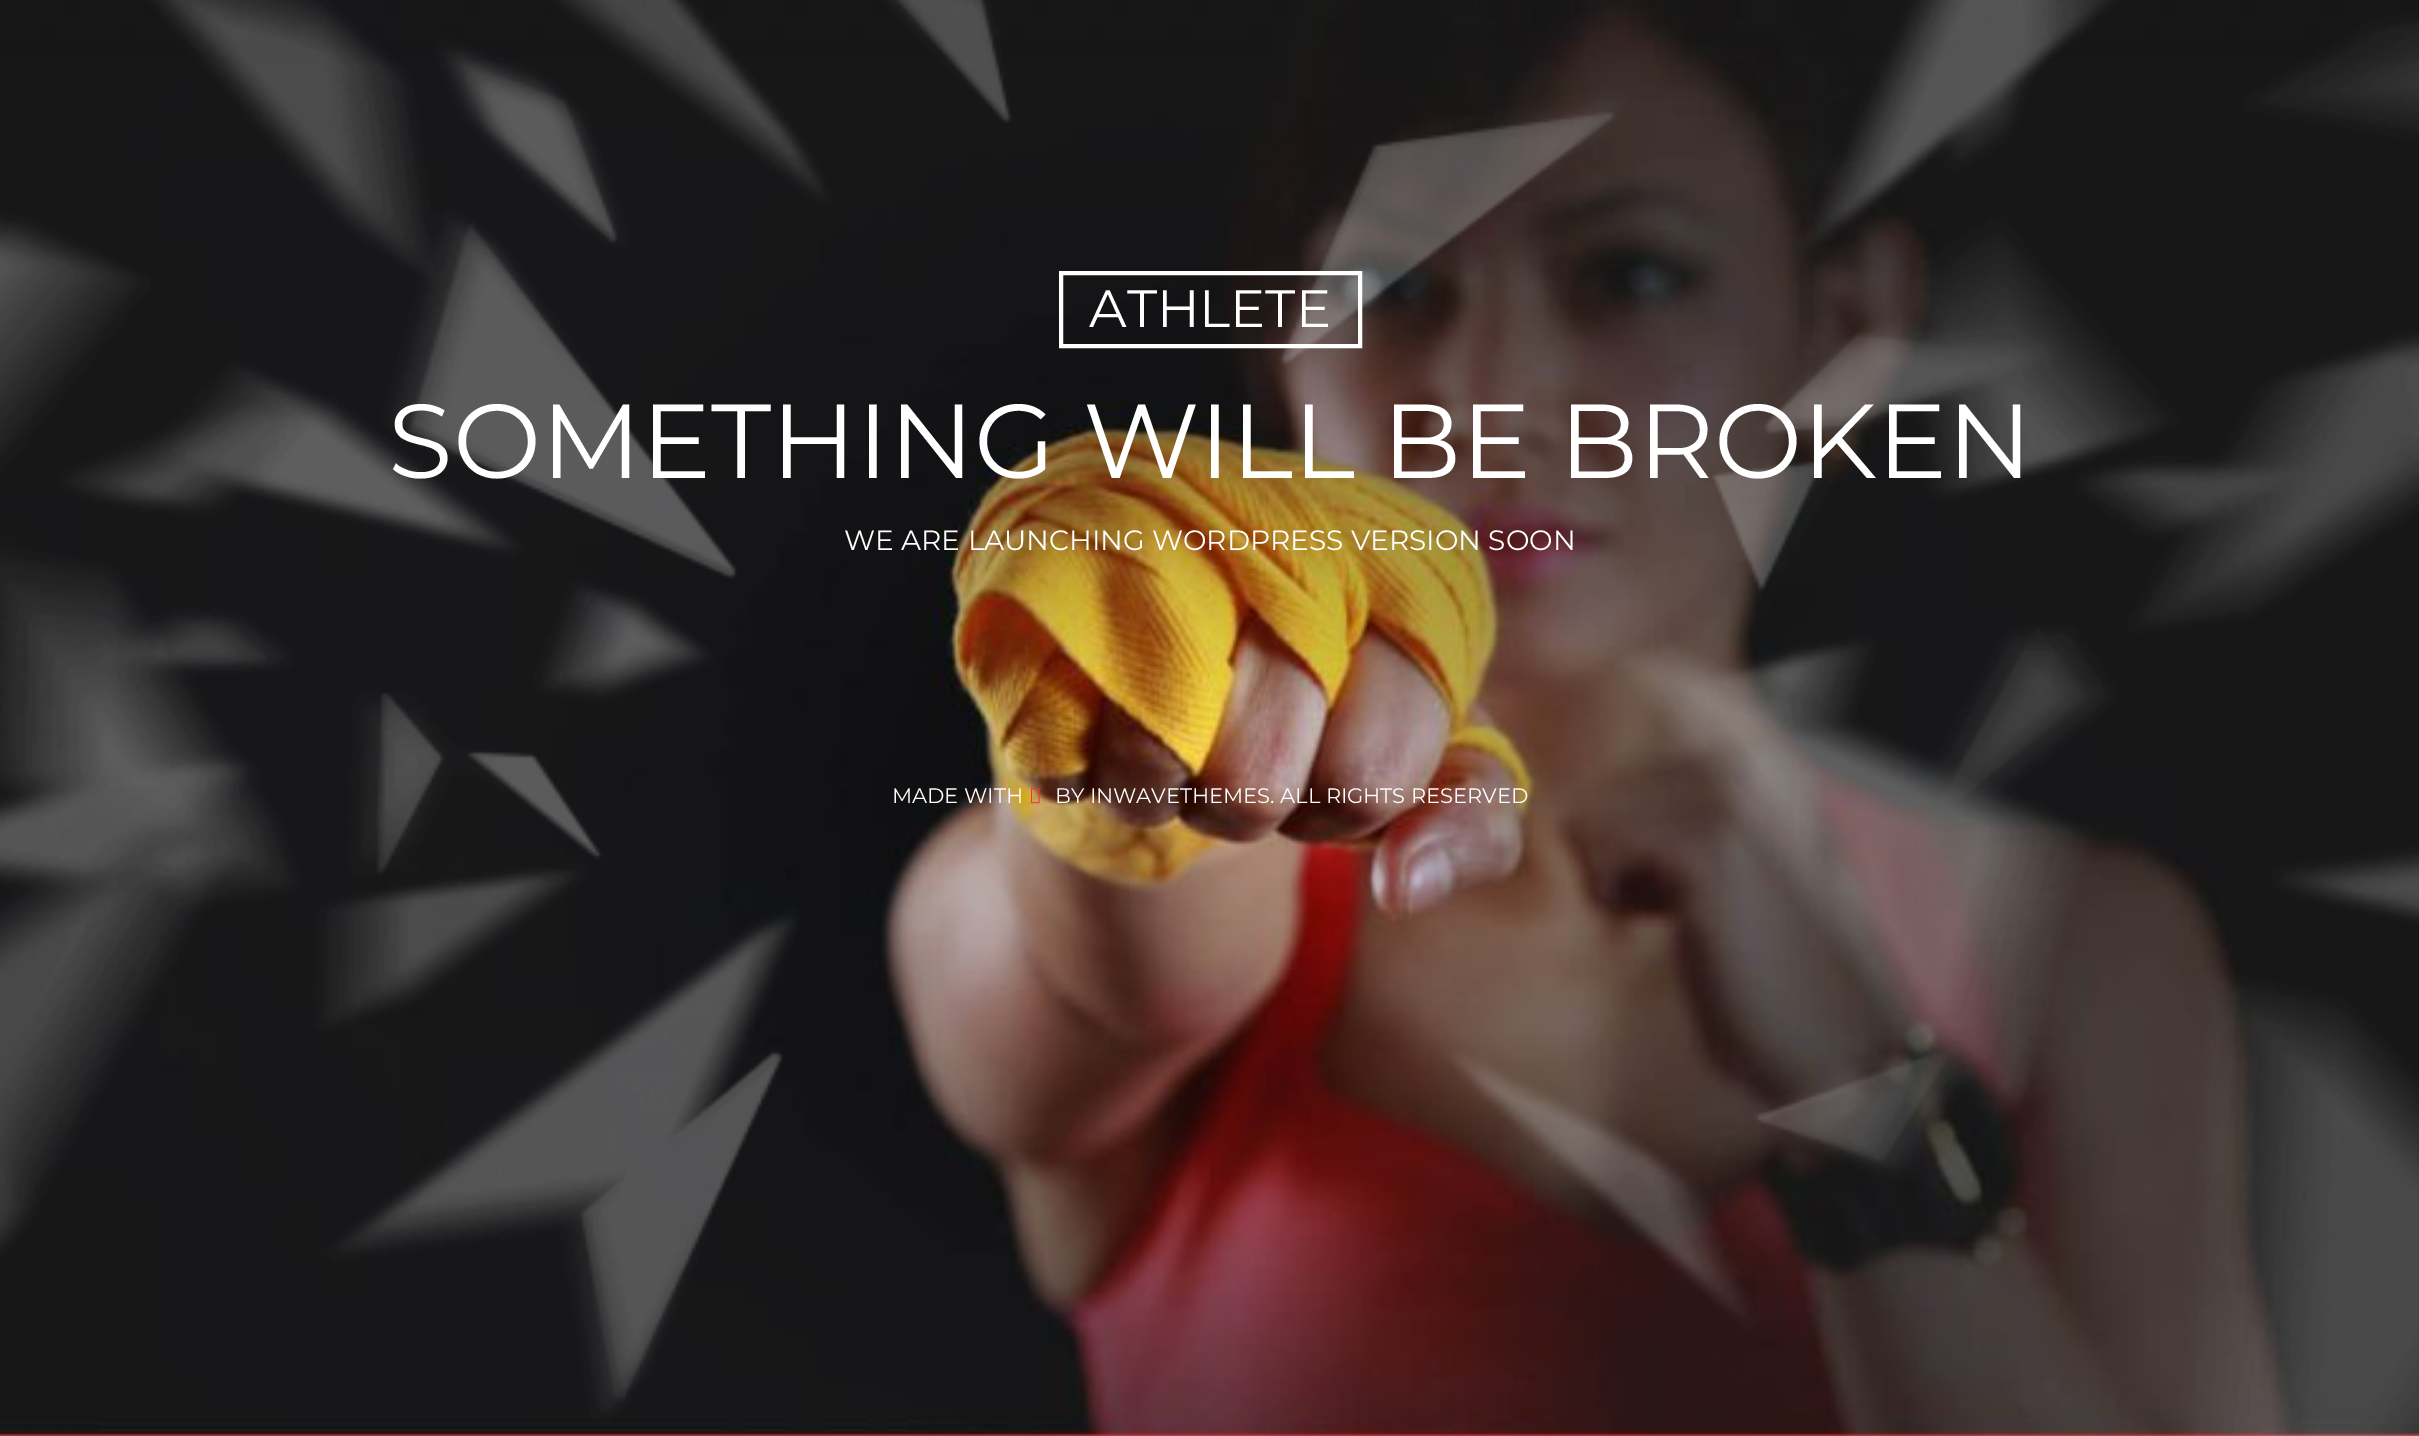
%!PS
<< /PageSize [2419 1436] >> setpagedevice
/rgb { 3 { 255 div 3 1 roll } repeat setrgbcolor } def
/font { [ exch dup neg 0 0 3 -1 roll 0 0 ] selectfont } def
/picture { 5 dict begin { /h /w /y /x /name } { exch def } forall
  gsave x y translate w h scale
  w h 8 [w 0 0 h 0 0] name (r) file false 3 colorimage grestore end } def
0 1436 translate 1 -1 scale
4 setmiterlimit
255 255 255 rgb
0 0 2419 1436 rectfill
(img/1.rgb) 0 0 2419 1436 picture
(img/2.rgb) 0 0 2419 1436 picture
4 setlinewidth
1061 273 299 73 rectstroke
(img/3.rgb) 1031 788 9 16 picture
/Montserrat-Regular 52.5 font
1089 327 moveto (ATHLETE) show
/Montserrat-Regular 105 font
388 478 moveto (SOMETHING WILL BE BROKEN) show
/Montserrat-Regular 28 font
844 550 moveto (WE ARE LAUNCHING WORDPRESS VERSION SOON) show
/Montserrat-Regular 21 font
892 803 moveto (MADE WITH) show
1055 803 moveto (BY INWAVETHEMES. ALL RIGHTS RESERVED) show
showpage
